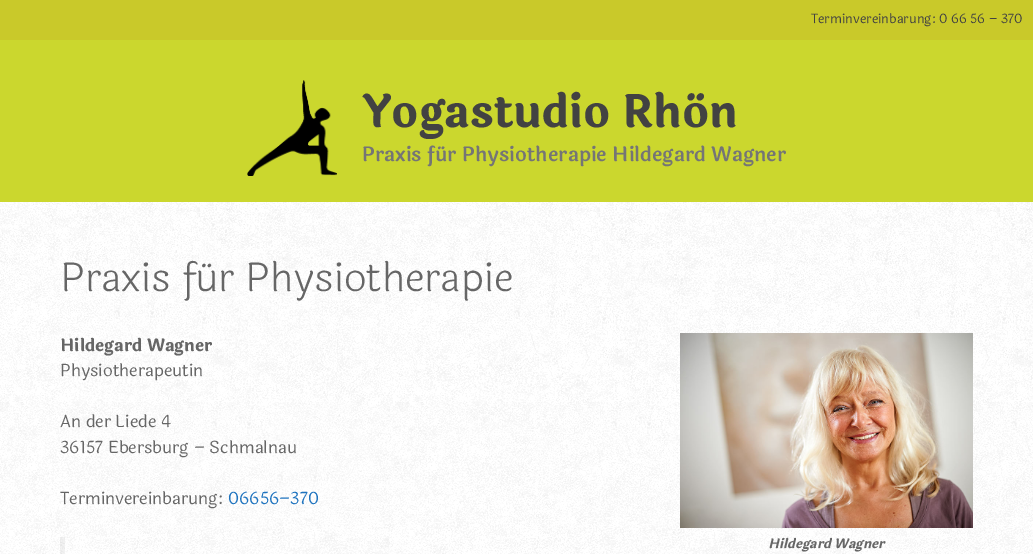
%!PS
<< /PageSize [1033 554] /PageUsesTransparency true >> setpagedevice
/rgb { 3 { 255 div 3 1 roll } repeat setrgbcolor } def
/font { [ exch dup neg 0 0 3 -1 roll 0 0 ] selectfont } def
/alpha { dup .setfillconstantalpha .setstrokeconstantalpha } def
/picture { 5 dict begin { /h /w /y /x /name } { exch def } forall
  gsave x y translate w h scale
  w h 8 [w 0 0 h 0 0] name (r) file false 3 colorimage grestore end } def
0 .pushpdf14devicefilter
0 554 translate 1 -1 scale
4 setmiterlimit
203 215 46 rgb
0 0 1033 554 rectfill
201 201 42 rgb
0 0 1033 40 rectfill
(img/1.rgb) 247 80 90 96 picture
255 255 255 rgb
0 202 1033 352 rectfill
(img/2.rgb) 0 202 1033 352 picture
0.05 alpha
0 0 0 rgb
60 537 5 17 rectfill
1 alpha
(img/3.rgb) 680 333 293 195 picture
/Laila-Regular 13 font
66 66 66 rgb
811 23 moveto (Terminvereinbarung:) show
939 23 moveto (0 66 56 – 370) show
/Laila-Bold 45 font
362 127 moveto (Yogastudio Rhön) show
/Laila-SemiBold 20 font
117 117 117 rgb
362 161 moveto (Praxis für Physiotherapie Hildegard Wagner) show
/Laila-Light 40 font
102 102 102 rgb
60 291 moveto (Praxis für Physiotherapie) show
/Laila-Bold 17 font
60 351 moveto (Hildegard Wagner) show
/Laila-Regular 17 font
[
  [(Physiotherapeutin) 60 376]
  [(An der Liede 4) 60 427]
  [(36157 Ebersburg – Schmalnau) 60 453]
  [(Terminvereinbarung:) 60 504]
] { aload pop moveto show } forall
30 115 190 rgb
228 504 moveto (06656–370) show
/Laila-BoldItalic 13 font
102 102 102 rgb
768 548 moveto (Hildegard Wagner) show
.poppdf14devicefilter showpage
